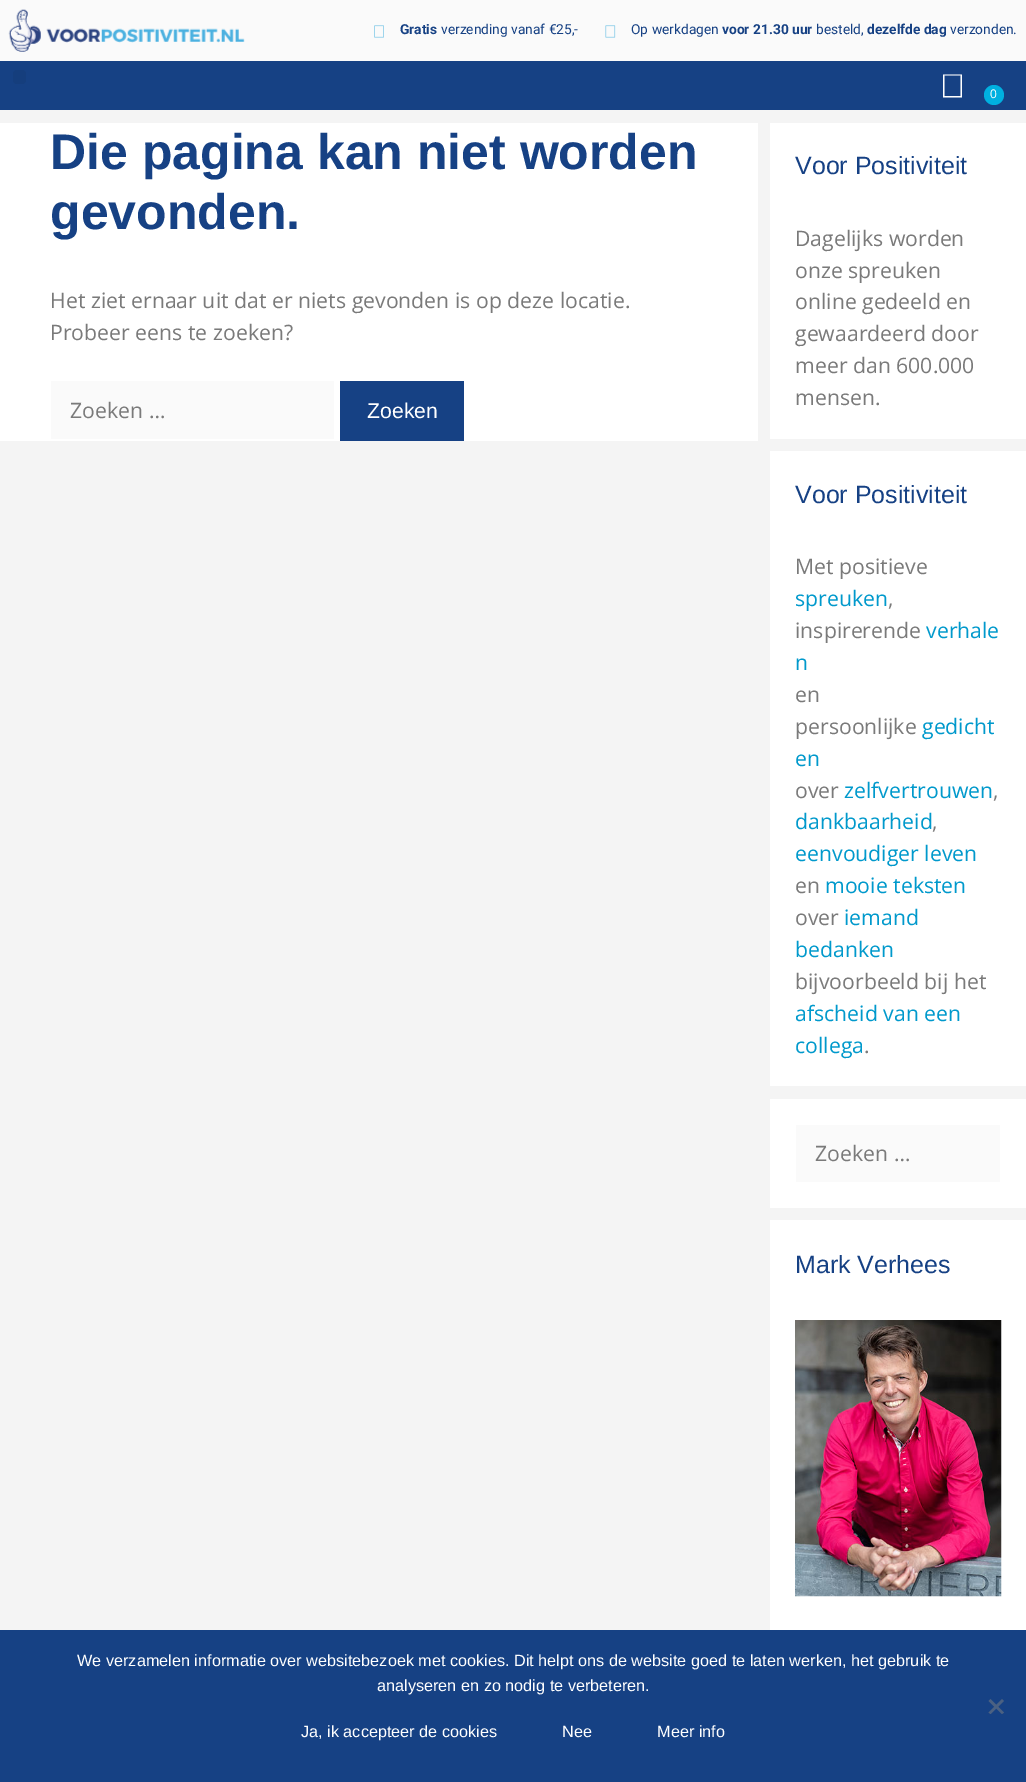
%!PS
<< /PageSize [1026 1782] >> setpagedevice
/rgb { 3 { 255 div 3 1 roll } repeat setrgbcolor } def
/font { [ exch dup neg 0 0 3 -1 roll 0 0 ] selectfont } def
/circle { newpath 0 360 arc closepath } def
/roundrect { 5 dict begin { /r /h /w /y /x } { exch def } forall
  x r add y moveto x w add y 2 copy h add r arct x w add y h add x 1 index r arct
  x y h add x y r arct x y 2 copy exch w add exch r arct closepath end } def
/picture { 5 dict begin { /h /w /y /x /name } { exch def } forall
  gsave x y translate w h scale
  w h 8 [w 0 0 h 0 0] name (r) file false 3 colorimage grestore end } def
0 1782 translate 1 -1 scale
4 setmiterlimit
244 244 244 rgb
0 0 1026 1782 rectfill
250 250 250 rgb
0 0 1026 61 rectfill
(img/1.rgb) 8 9 237 43 picture
(img/2.rgb) 374 25 10 13 picture
(img/3.rgb) 605 25 11 13 picture
22 65 132 rgb
0 61 1026 49 rectfill
21 62 125 rgb
13 70 13 14 4 roundrect fill
255 255 255 rgb
943 74.5 moveto 962 74.5 lineto 962 97.5 lineto 943 97.5 lineto closepath 944.5 75.5 moveto 944.5 96 lineto 960.5 96 lineto 960.5 75.5 lineto closepath fill
0 176 224 rgb
994 95 10 circle fill
[
  [0 123 758 318 255 255 255]
  [51 381 283 58 250 250 250]
  [340 381 124 60 22 65 132]
  [770 123 256 316 255 255 255]
  [770 451 256 635 255 255 255]
  [770 1099 256 109 255 255 255]
  [796 1125 204 57 250 250 250]
  [770 1220 256 410 255 255 255]
] { aload pop rgb rectfill } forall
(img/4.rgb) 795 1320 207 277 picture
22 65 132 rgb
0 1630 1026 152 rectfill
75 97 130 rgb
1002 1699 moveto 1004 1701 lineto 990.5 1714 lineto 988.5 1712.5 lineto closepath fill
988.5 1701 moveto 990.5 1699 lineto 1004 1712.5 lineto 1002 1714 lineto closepath fill
/Roboto-Bold 13.75 font
22 65 132 rgb
400 34 moveto (Gratis) show
/Roboto-Regular 13.75 font
441 34 moveto (verzending vanaf €25,-) show
631 34 moveto (Op werkdagen) show
/Roboto-Bold 13.75 font
722 34 moveto (voor 21.30 uur) show
/Roboto-Regular 13.75 font
816 34 moveto (besteld,) show
/Roboto-Bold 13.75 font
867 34 moveto (dezelfde dag) show
/Roboto-Regular 13.75 font
950 34 moveto (verzonden.) show
/OpenSans-Regular 12 font
255 255 255 rgb
990 98 moveto (0) show
/LiberationSans-Bold 50 font
22 65 132 rgb
50 169 moveto (Die pagina kan niet worden) show
50 229 moveto (gevonden.) show
/OpenSans-Regular 21.25 font
122 122 122 rgb
[
  [(Het ziet ernaar uit dat er niets gevonden is op deze locatie.) 50 308]
  [(Probeer eens te zoeken?) 50 340]
  [(Zoeken …) 70 418]
] { aload pop moveto show } forall
/LiberationSans-Regular 21.25 font
255 255 255 rgb
367 418 moveto (Zoeken) show
/LiberationSans-Regular 25 font
22 65 132 rgb
795 174 moveto (Voor Positiviteit) show
/OpenSans-Regular 21.25 font
122 122 122 rgb
[
  [(Dagelijks worden) 795 246]
  [(onze spreuken) 795 278]
  [(online gedeeld en) 795 309]
  [(gewaardeerd door) 795 341]
  [(meer dan 600.000) 795 373]
  [(mensen.) 795 405]
] { aload pop moveto show } forall
/LiberationSans-Regular 25 font
22 65 132 rgb
795 503 moveto (Voor Positiviteit) show
/OpenSans-Regular 21.25 font
122 122 122 rgb
795 574 moveto (Met positieve) show
0 153 204 rgb
795 606 moveto (spreuken) show
122 122 122 rgb
888 606 moveto (,) show
795 638 moveto (inspirerende) show
0 153 204 rgb
926 638 moveto (verhale) show
795 670 moveto (n) show
122 122 122 rgb
795 702 moveto (en) show
795 734 moveto (persoonlijke) show
0 153 204 rgb
922 734 moveto (gedicht) show
795 766 moveto (en) show
122 122 122 rgb
795 798 moveto (over) show
0 153 204 rgb
844 798 moveto (zelfvertrouwen) show
122 122 122 rgb
993 798 moveto (,) show
0 153 204 rgb
795 829 moveto (dankbaarheid) show
122 122 122 rgb
932 829 moveto (,) show
0 153 204 rgb
795 861 moveto (eenvoudiger leven) show
122 122 122 rgb
795 893 moveto (en) show
0 153 204 rgb
825 893 moveto (mooie teksten) show
122 122 122 rgb
795 925 moveto (over) show
0 153 204 rgb
844 925 moveto (iemand) show
795 957 moveto (bedanken) show
122 122 122 rgb
795 989 moveto (bijvoorbeeld bij het) show
0 153 204 rgb
795 1021 moveto (afscheid van een) show
795 1053 moveto (collega) show
122 122 122 rgb
864 1053 moveto (.) show
815 1161 moveto (Zoeken …) show
/LiberationSans-Regular 25 font
22 65 132 rgb
795 1273 moveto (Mark Verhees) show
/LiberationSans-Regular 16.25 font
255 255 255 rgb
[
  [(We verzamelen informatie over websitebezoek met cookies. Dit helpt ons de website goed te laten werken, het gebruik te) 77 1666]
  [(analyseren en zo nodig te verbeteren.) 377 1691]
  [(Ja, ik accepteer de cookies) 301 1737]
  [(Nee) 562 1737]
  [(Meer info) 657 1737]
] { aload pop moveto show } forall
showpage
